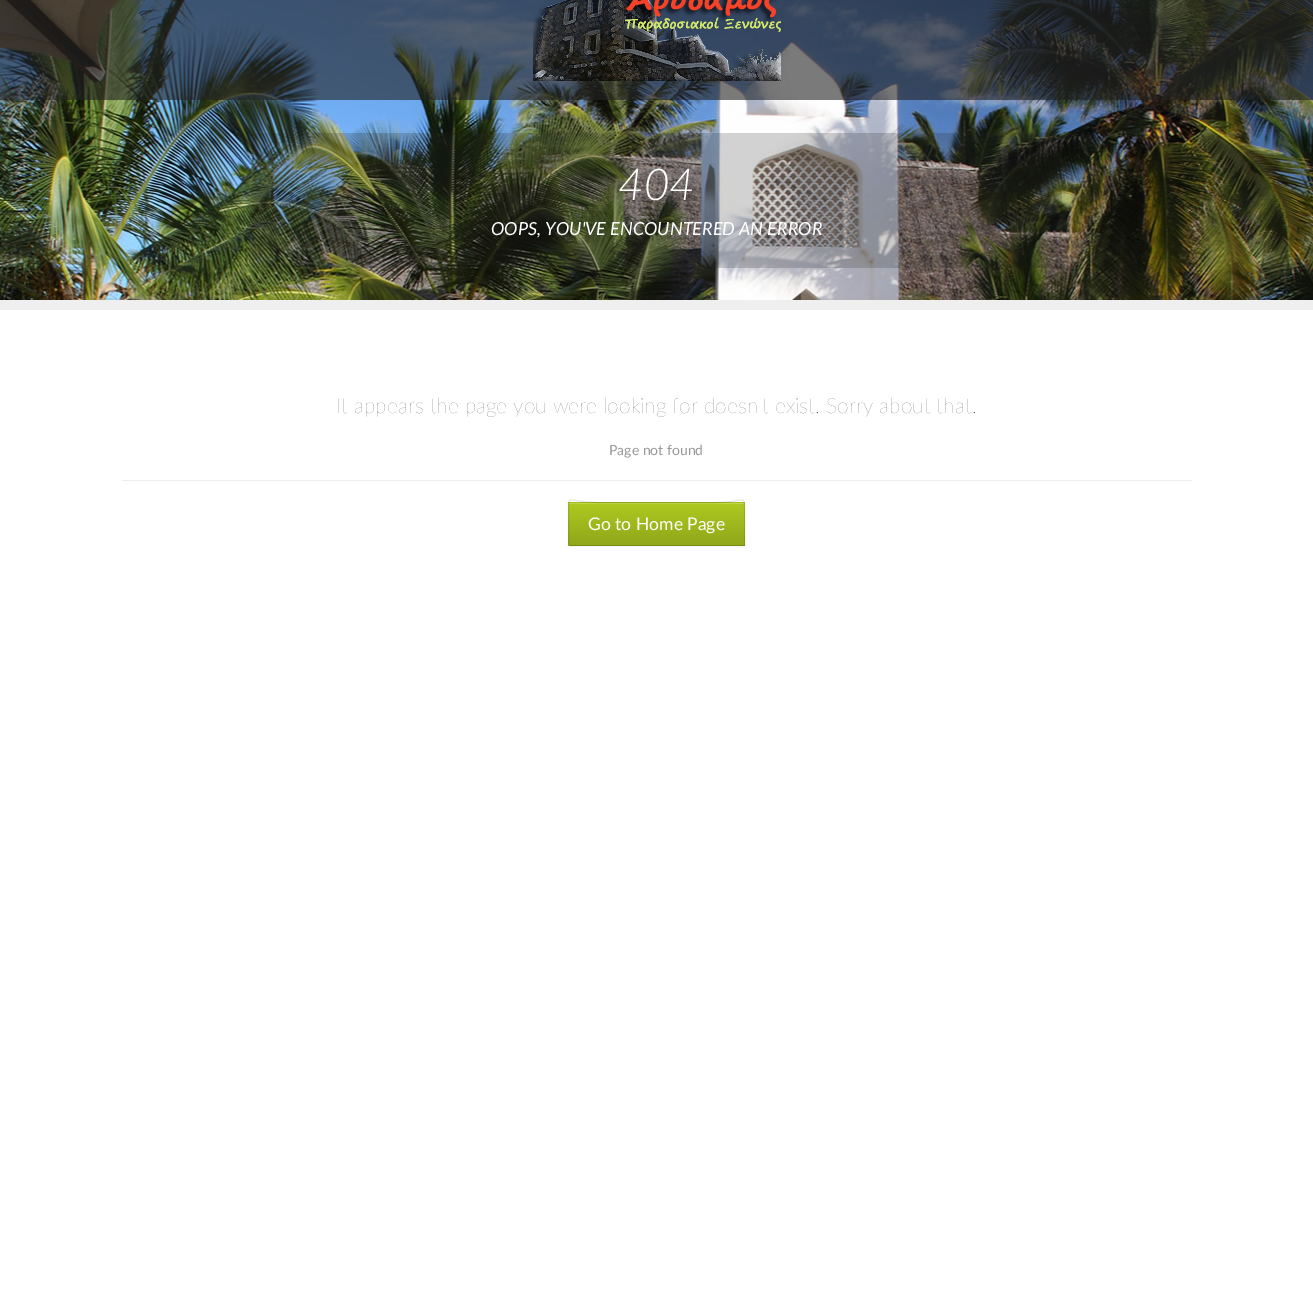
%!PS
<< /PageSize [1313 1302] /PageUsesTransparency true >> setpagedevice
/rgb { 3 { 255 div 3 1 roll } repeat setrgbcolor } def
/font { [ exch dup neg 0 0 3 -1 roll 0 0 ] selectfont } def
/alpha { dup .setfillconstantalpha .setstrokeconstantalpha } def
/roundrect { 5 dict begin { /r /h /w /y /x } { exch def } forall
  x r add y moveto x w add y 2 copy h add r arct x w add y h add x 1 index r arct
  x y h add x y r arct x y 2 copy exch w add exch r arct closepath end } def
/shadow { 12 dict begin { /a /b /q /h /w /y /x } { exch def } forall gsave /was 0 def
  9 -2 -9 { dup b mul 4 div /e exch def 1 sub .425 mul 2.718 exch exp 1 add a .99 .min exch div /now exch def
    1 1 now sub 1 was sub div sub alpha /was now def
    w h .min e 2 mul add 0 gt { x e sub y e sub w e 2 mul add h e 2 mul add
      q e add b .6 mul add w h .min 2 div e add .min 0 .max roundrect fill } if } for grestore end } def
/picture { 5 dict begin { /h /w /y /x /name } { exch def } forall
  gsave x y translate w h scale
  w h 8 [w 0 0 h 0 0] name (r) file false 3 colorimage grestore end } def
0 .pushpdf14devicefilter
0 1302 translate 1 -1 scale
4 setmiterlimit
255 255 255 rgb
0 0 1313 1302 rectfill
(img/2.rgb) 0 0 1313 300 picture
0.6 alpha
34 34 34 rgb
0 0 1313 100 rectfill
1 alpha
(img/1.rgb) 533 0 248 81 picture
[
  [0 300 1313 10 239 239 239]
] { aload pop rgb rectfill } forall
0.2 alpha
[
  [252 133 810 135 34 34 34]
] { aload pop rgb rectfill } forall
1 alpha
[
  [122 480 1070 1 238 238 238]
] { aload pop rgb rectfill } forall
0 0 0 rgb
568 503 177 44 1 1 0.05 shadow
162 188 30 rgb
568 502 177 44 1 roundrect fill
gsave 568 503 moveto 745 503 lineto 745 545 lineto 568 545 lineto closepath clip newpath
<< /ShadingType 2 /ColorSpace /DeviceRGB /Coords [657 503 657 545] /Extend [true true] /Function << /FunctionType 2 /Domain [0 1] /C0 [0.682 0.792 0.125] /C1 [0.565 0.655 0.102] /N 1 >> >> shfill grestore
190 213 77 rgb
569 503 175 1 rectfill
0.25 alpha
0 0 0 rgb
569 545 176 1 rectfill
0.1 alpha
568.5 545.5 moveto 568.5 510 lineto 568.5 493 568 502.5 598 502.5 curveto 715 502.5 lineto 745 502.5 744.5 493 744.5 510 curveto 744.5 545.5 lineto stroke
/Lato-LightItalic 44 font
1 alpha
255 255 255 rgb
618 200 moveto (404) show
/Lato-Italic 18 font
491 235 moveto (OOPS, YOU'VE ENCOUNTERED AN ERROR) show
/Lato-ExtraLight 21 font
102 102 102 rgb
336 413 moveto (It appears the page you were looking for doesn't exist. Sorry about that.) show
/Lato-Regular 14 font
153 153 153 rgb
609 455 moveto (Page not found) show
/Lato-Regular 17.5 font
255 255 255 rgb
588 530 moveto (Go to Home Page) show
.poppdf14devicefilter showpage
